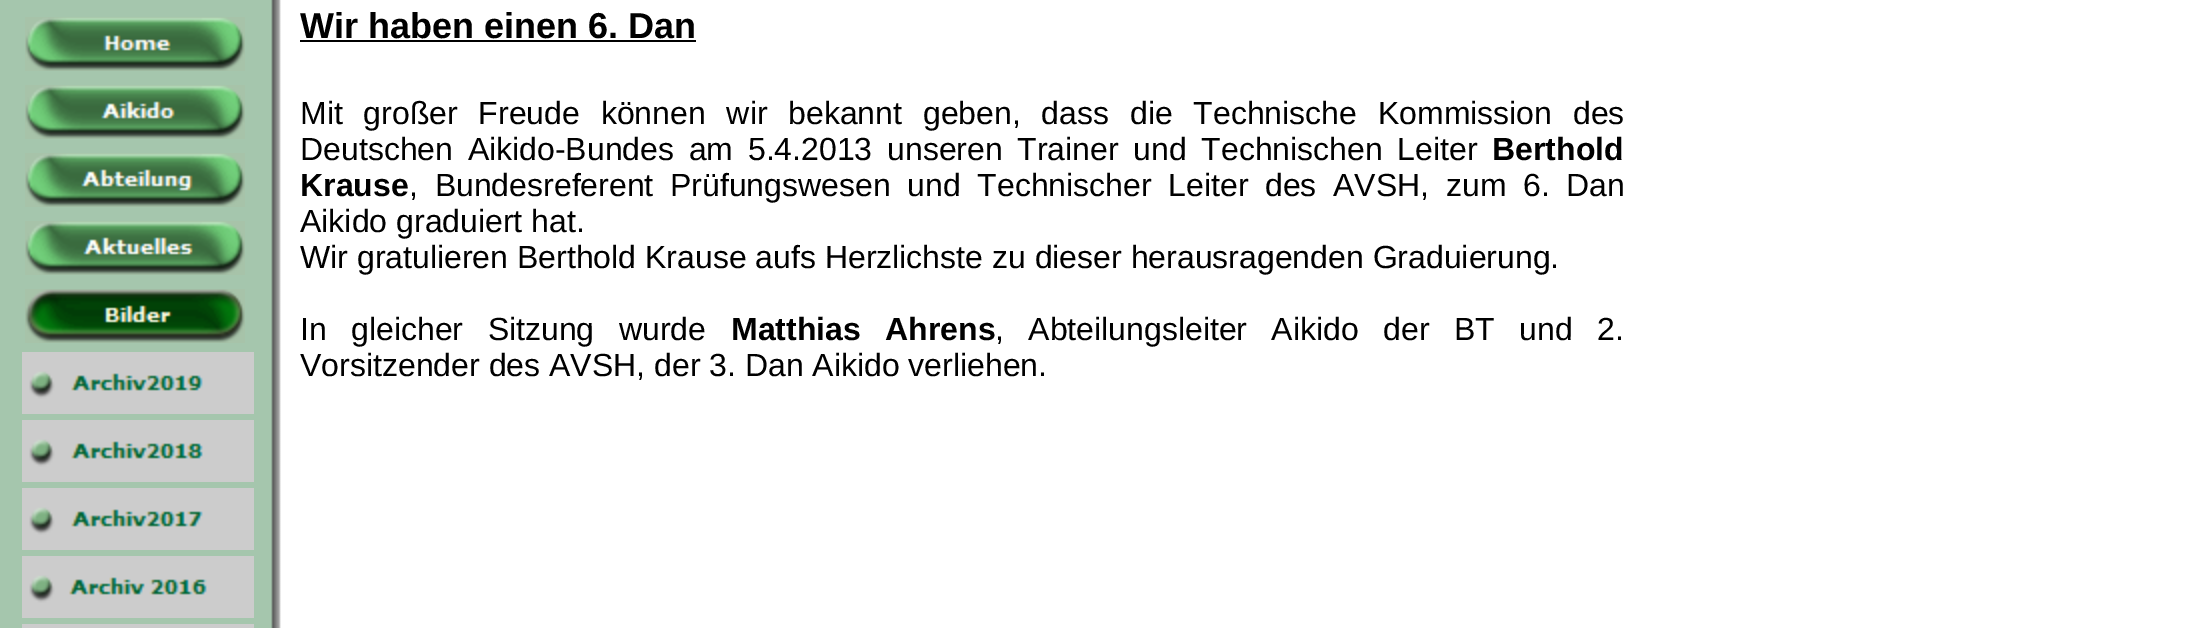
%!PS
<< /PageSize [2190 628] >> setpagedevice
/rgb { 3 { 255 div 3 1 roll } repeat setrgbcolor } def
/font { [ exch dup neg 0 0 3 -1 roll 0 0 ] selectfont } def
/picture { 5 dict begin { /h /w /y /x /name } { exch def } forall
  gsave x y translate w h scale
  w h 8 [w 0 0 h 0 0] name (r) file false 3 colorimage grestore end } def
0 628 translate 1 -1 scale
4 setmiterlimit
255 255 255 rgb
0 0 2190 628 rectfill
(img/1.rgb) 0 0 281 628 picture
(img/2.rgb) 25 17 220 54 picture
(img/3.rgb) 25 85 220 54 picture
(img/4.rgb) 25 153 220 54 picture
(img/5.rgb) 25 221 220 54 picture
(img/6.rgb) 25 289 220 54 picture
(img/7.rgb) 22 352 232 62 picture
(img/8.rgb) 22 420 232 62 picture
(img/9.rgb) 22 488 232 62 picture
(img/10.rgb) 22 556 232 62 picture
204 204 204 rgb
22 624 232 4 rectfill
0 0 0 rgb
300 40 396 2 rectfill
/LiberationSans-Bold 36 font
300 38 moveto (Wir haben einen 6. Dan) show
/LiberationSans-Regular 32 font
300 124 moveto 11.9 0 32 (Mit großer Freude können wir bekannt geben, dass die Technische Kommission des) widthshow
300 160 moveto 5.75 0 32 (Deutschen Aikido-Bundes am 5.4.2013 unseren Trainer und Technischen Leiter) widthshow
/LiberationSans-Bold 32 font
1492 160 moveto (Berthold) show
300 196 moveto (Krause) show
/LiberationSans-Regular 32 font
409 196 moveto 7.75 0 32 (, Bundesreferent Prüfungswesen und Technischer Leiter des AVSH, zum 6. Dan) widthshow
300 232 moveto (Aikido graduiert hat.) show
300 268 moveto (Wir gratulieren Berthold Krause aufs Herzlichste zu dieser herausragenden Graduierung.) show
300 340 moveto 15.5 0 32 (In gleicher Sitzung wurde) widthshow
/LiberationSans-Bold 32 font
731 340 moveto 15.5 0 32 (Matthias Ahrens) widthshow
/LiberationSans-Regular 32 font
995 340 moveto 15.5 0 32 (, Abteilungsleiter Aikido der BT und 2.) widthshow
300 376 moveto (Vorsitzender des AVSH, der 3. Dan Aikido verliehen.) show
showpage
